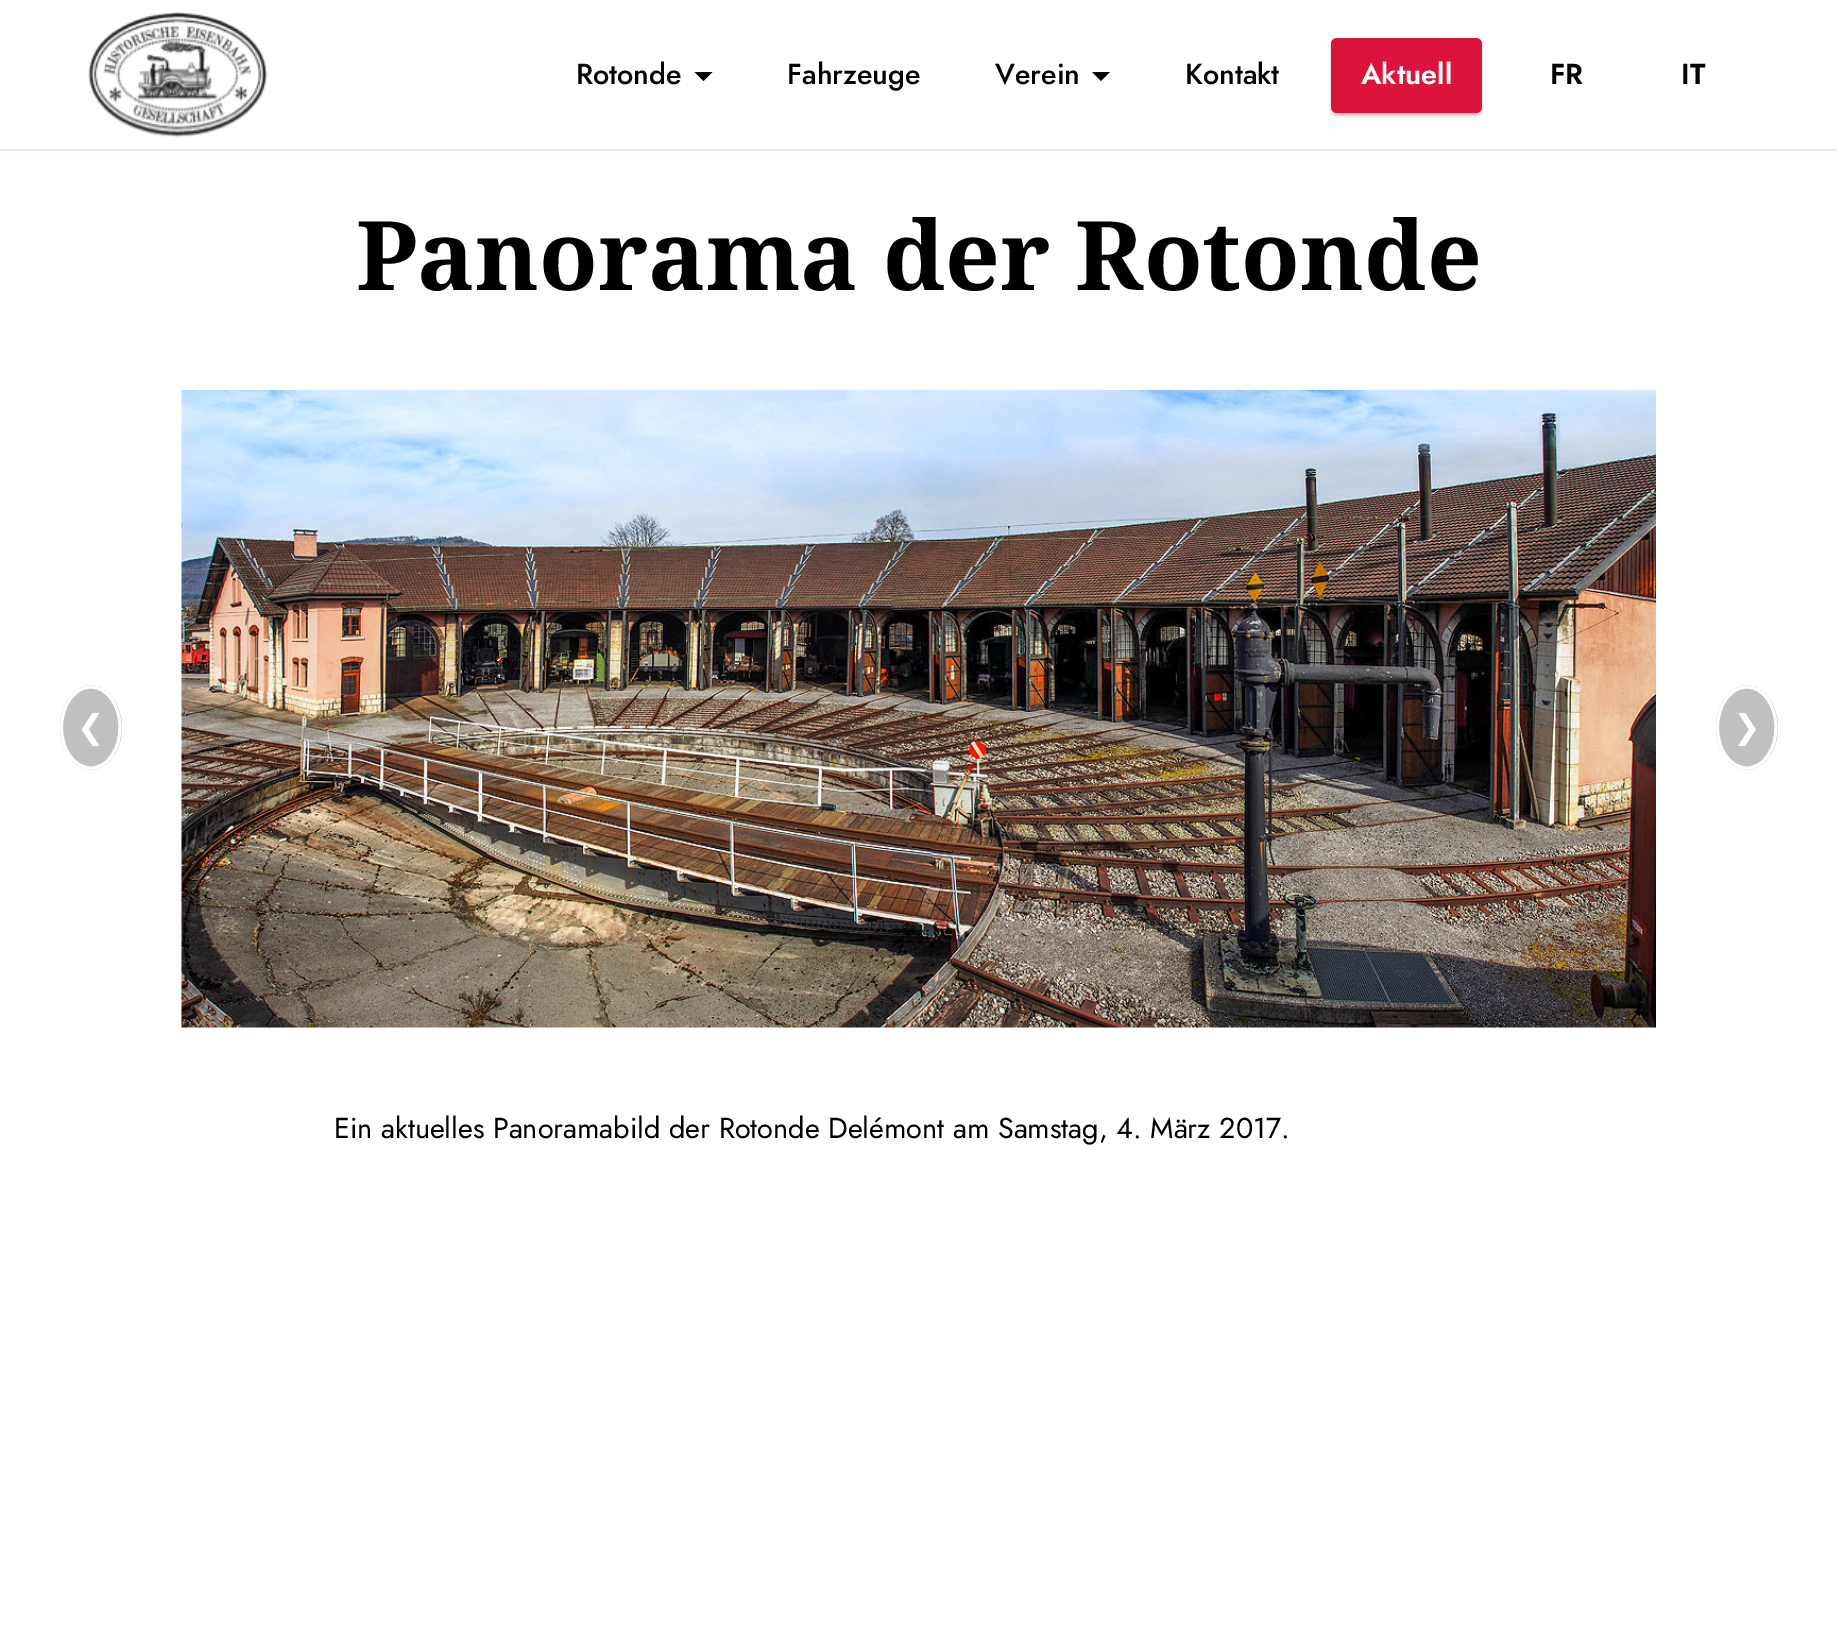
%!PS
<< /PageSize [1837 1651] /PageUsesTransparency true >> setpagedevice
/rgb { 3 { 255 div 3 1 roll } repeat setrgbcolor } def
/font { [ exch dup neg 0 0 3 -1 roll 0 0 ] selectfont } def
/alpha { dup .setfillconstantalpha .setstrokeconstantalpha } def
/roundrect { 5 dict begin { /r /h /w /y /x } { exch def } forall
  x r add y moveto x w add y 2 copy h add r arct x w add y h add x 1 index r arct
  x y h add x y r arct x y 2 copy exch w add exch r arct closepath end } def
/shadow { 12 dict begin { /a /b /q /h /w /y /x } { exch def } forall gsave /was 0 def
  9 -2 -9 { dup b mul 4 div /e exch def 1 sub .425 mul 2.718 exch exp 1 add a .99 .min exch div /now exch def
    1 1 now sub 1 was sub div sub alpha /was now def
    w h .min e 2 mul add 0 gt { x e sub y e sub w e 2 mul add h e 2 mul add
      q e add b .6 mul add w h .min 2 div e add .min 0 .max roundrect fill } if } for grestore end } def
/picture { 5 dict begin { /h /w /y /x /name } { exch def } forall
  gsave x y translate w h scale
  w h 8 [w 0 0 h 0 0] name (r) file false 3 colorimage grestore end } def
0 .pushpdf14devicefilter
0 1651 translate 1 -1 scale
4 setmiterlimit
255 255 255 rgb
0 0 1837 1651 rectfill
230 230 250 rgb
0 149 1837 2 rectfill
(img/1.rgb) 88 12 180 126 picture
0 0 0 rgb
694.5 72 moveto 712.5 72 lineto 703.5 81 lineto closepath fill
1092 72 moveto 1110 72 lineto 1101 81 lineto closepath fill
1331 41 151 75 6 1.5 0.2 shadow
220 20 60 rgb
1331 38 151 75 6 roundrect fill
192 192 192 rgb
91 685.5 moveto 108 685.5 122 704.5 122 727.5 curveto 122 750.5 108 769.5 91 769.5 curveto 74 769.5 60 750.5 60 727.5 curveto 60 704.5 74 685.5 91 685.5 curveto closepath fill
255 255 255 rgb
3 setlinewidth
91 687 moveto 107 687 120 705 120 727.5 curveto 120 750 107 768 91 768 curveto 74.5 768 61.5 750 61.5 727.5 curveto 61.5 705 74.5 687 91 687 curveto closepath stroke
(img/2.rgb) 181 390 1475 638 picture
192 192 192 rgb
1747 685.5 moveto 1764 685.5 1778 704.5 1778 727.5 curveto 1778 750.5 1764 769.5 1747 769.5 curveto 1730 769.5 1716 750.5 1716 727.5 curveto 1716 704.5 1730 685.5 1747 685.5 curveto closepath fill
255 255 255 rgb
1747 687 moveto 1763 687 1776 705 1776 727.5 curveto 1776 750 1763 768 1747 768 curveto 1730.5 768 1717.5 750 1717.5 727.5 curveto 1717.5 705 1730.5 687 1747 687 curveto closepath stroke
/Jost-Medium 28.8 font
0 0 0 rgb
[
  [(Rotonde) 576 84]
  [(Fahrzeuge) 787 84]
  [(Verein) 995 84]
  [(Kontakt) 1185 84]
] { aload pop moveto show } forall
/Jost-SemiBold 28.8 font
255 255 255 rgb
1361 84 moveto (Aktuell) show
0 0 0 rgb
1550 84 moveto (FR) show
1681 84 moveto (IT) show
/NotoSerif-Bold 96 font
356 290 moveto (Panorama der Rotonde) show
/DejaVuSans-Regular 33 font
255 255 255 rgb
77 738 moveto (❮) show
1733 738 moveto (❯) show
/Jost-Regular 28.8 font
0 0 0 rgb
334 1138 moveto (Ein aktuelles Panoramabild der Rotonde Delémont am Samstag, 4. März 2017.) show
.poppdf14devicefilter showpage
